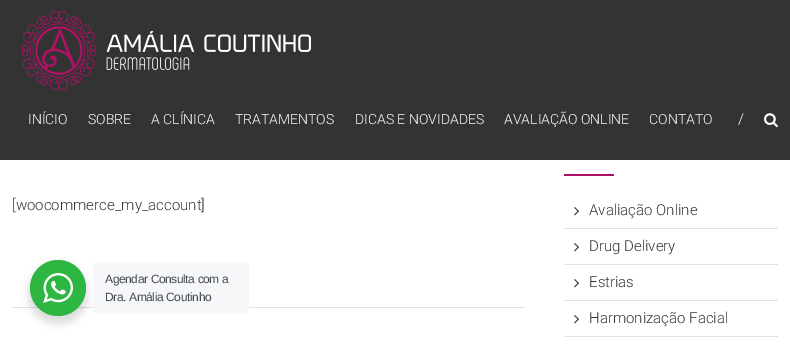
%!PS
<< /PageSize [790 346] /PageUsesTransparency true >> setpagedevice
/rgb { 3 { 255 div 3 1 roll } repeat setrgbcolor } def
/font { [ exch dup neg 0 0 3 -1 roll 0 0 ] selectfont } def
/alpha { dup .setfillconstantalpha .setstrokeconstantalpha } def
/circle { newpath 0 360 arc closepath } def
/roundrect { 5 dict begin { /r /h /w /y /x } { exch def } forall
  x r add y moveto x w add y 2 copy h add r arct x w add y h add x 1 index r arct
  x y h add x y r arct x y 2 copy exch w add exch r arct closepath end } def
/shadow { 12 dict begin { /a /b /q /h /w /y /x } { exch def } forall gsave /was 0 def
  9 -2 -9 { dup b mul 4 div /e exch def 1 sub .425 mul 2.718 exch exp 1 add a .99 .min exch div /now exch def
    1 1 now sub 1 was sub div sub alpha /was now def
    w h .min e 2 mul add 0 gt { x e sub y e sub w e 2 mul add h e 2 mul add
      q e add b .6 mul add w h .min 2 div e add .min 0 .max roundrect fill } if } for grestore end } def
/picture { 5 dict begin { /h /w /y /x /name } { exch def } forall
  gsave x y translate w h scale
  w h 8 [w 0 0 h 0 0] name (r) file false 3 colorimage grestore end } def
0 .pushpdf14devicefilter
0 346 translate 1 -1 scale
4 setmiterlimit
255 255 255 rgb
0 0 790 346 rectfill
51 51 51 rgb
0 0 790 160 rectfill
(img/1.rgb) 22 11 289 79 picture
(img/2.rgb) 764 113 14 15 picture
[
  [12 307 513 1 225 225 225]
  [564 174 50 2 175 17 102]
  [564 228 214 1 225 225 225]
] { aload pop rgb rectfill } forall
(img/3.rgb) 574 207 5 9 picture
564 264 214 1 rectfill
(img/3.rgb) 574 243 5 9 picture
564 300 214 1 rectfill
(img/3.rgb) 574 279 5 9 picture
564 336 214 1 rectfill
(img/3.rgb) 574 315 5 9 picture
0 0 0 rgb
28 264 60 60 30 4 0.14 shadow
45 183 66 rgb
58 288 28 circle fill
(img/4.rgb) 43 273 30 30 picture
245 247 249 rgb
93 262 156 52 4 roundrect fill
/Roboto-Light 14 font
255 255 255 rgb
[
  [(INÍCIO) 28 124]
  [(SOBRE) 88 124]
  [(A CLÍNICA) 151 124]
  [(TRATAMENTOS) 235 124]
  [(DICAS E NOVIDADES) 355 124]
  [(AVALIAÇÃO ONLINE) 504 124]
  [(CONTATO) 649 124]
] { aload pop moveto show } forall
/Roboto-Light 15 font
738 124 moveto (/) show
51 51 51 rgb
[
  [([woocommerce_my_account]) 12 210]
  [(Avaliação Online) 589 215]
  [(Drug Delivery) 589 251]
  [(Estrias) 589 287]
  [(Harmonização Facial) 589 323]
] { aload pop moveto show } forall
/LiberationSans-Regular 12 font
67 71 78 rgb
105 283 moveto -0.4 0 (Agendar Consulta com a) ashow
105 301 moveto -0.4 0 (Dra. Amália Coutinho) ashow
.poppdf14devicefilter showpage
